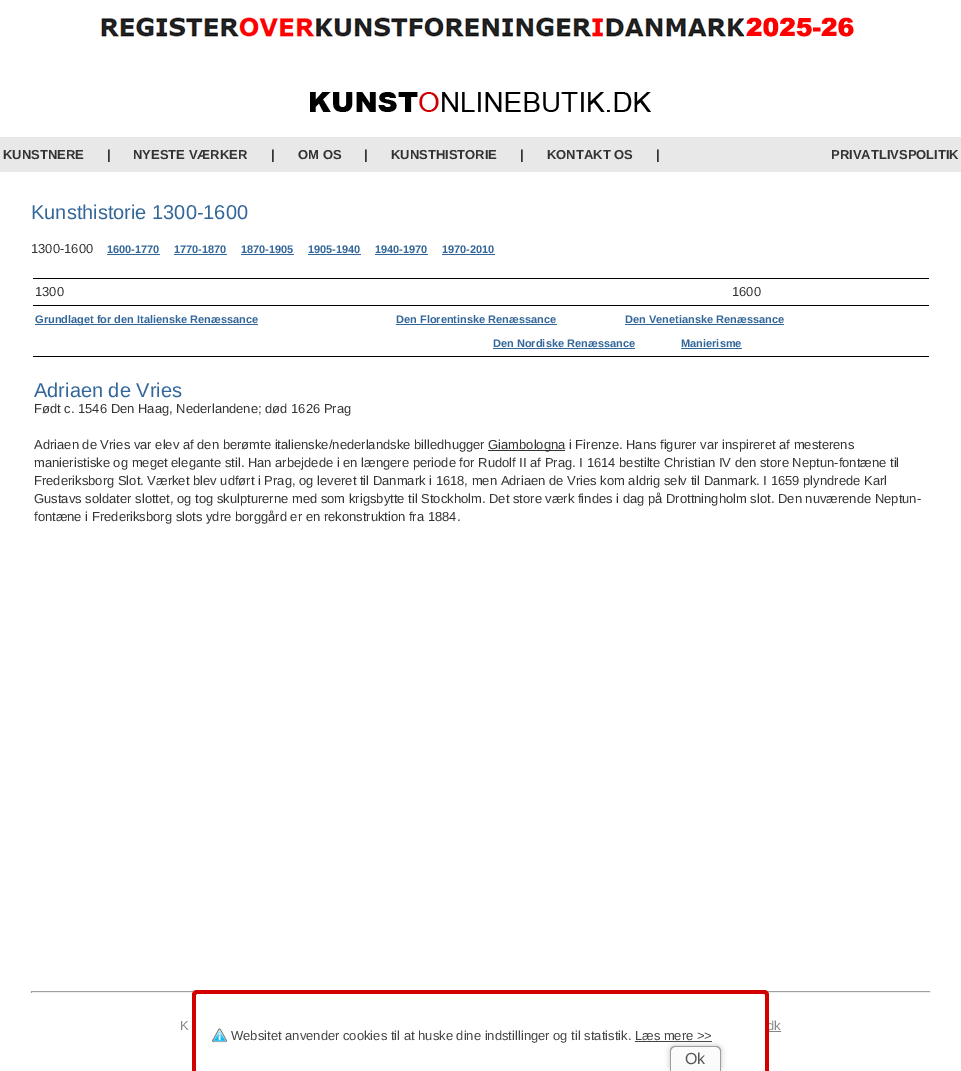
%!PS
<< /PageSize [961 1071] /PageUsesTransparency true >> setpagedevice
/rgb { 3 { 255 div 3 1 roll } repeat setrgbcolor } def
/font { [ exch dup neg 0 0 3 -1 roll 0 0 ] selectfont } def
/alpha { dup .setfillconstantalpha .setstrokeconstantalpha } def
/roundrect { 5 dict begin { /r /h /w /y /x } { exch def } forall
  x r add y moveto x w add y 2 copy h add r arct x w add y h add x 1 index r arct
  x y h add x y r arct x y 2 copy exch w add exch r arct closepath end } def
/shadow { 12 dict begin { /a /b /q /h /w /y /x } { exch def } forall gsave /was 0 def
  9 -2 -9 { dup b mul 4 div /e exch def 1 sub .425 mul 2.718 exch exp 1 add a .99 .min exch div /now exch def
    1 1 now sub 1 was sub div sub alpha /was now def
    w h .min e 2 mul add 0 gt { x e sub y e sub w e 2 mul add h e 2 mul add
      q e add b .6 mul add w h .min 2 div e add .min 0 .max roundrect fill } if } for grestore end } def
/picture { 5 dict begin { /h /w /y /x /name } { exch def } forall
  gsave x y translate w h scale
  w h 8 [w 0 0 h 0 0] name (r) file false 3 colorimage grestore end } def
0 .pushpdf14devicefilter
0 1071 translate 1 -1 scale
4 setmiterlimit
255 255 255 rgb
0 0 961 1071 rectfill
(img/1.rgb) 101 17 753 20 picture
(img/2.rgb) 310 92 341 20 picture
[
  [0 137 961 35 232 232 232]
  [107 254 53 1 51 102 153]
  [174 254 53 1 51 102 153]
  [241 254 53 1 51 102 153]
  [308 254 53 1 51 102 153]
  [375 254 53 1 51 102 153]
  [442 254 53 1 51 102 153]
  [33 278 896 1 0 0 0]
  [33 305 896 1 0 0 0]
  [35 324 223 1 51 102 153]
  [396 324 161 1 51 102 153]
  [625 324 159 1 51 102 153]
  [493 348 142 1 51 102 153]
  [681 348 61 1 51 102 153]
  [33 356 896 1 0 0 0]
  [488 450 77 1 51 51 51]
  [31 991 900 1 159 159 159]
  [930 991 1 2 238 238 238]
  [31 992 900 1 238 238 238]
  [31 991 1 2 159 159 159]
  [769 1031 12 1 134 134 134]
] { aload pop rgb rectfill } forall
/LiberationSans-Bold 13 font
51 51 51 rgb
[
  [(KUNSTNERE) 3 159]
  [(|) 107 159]
  [(NYESTE VÆRKER) 133 159]
  [(|) 271 159]
  [(OM OS) 298 159]
  [(|) 364 159]
  [(KUNSTHISTORIE) 391 159]
  [(|) 520 159]
  [(KONTAKT OS) 547 159]
  [(|) 656 159]
  [(PRIVATLIVSPOLITIK) 831 159]
] { aload pop moveto show } forall
/LiberationSans-Regular 20 font
51 102 153 rgb
31 219 moveto (Kunsthistorie 1300-1600) show
/LiberationSans-Regular 13 font
51 51 51 rgb
31 253 moveto (1300-1600) show
/LiberationSans-Bold 11 font
51 102 153 rgb
[
  [(1600-1770) 107 253]
  [(1770-1870) 174 253]
  [(1870-1905) 241 253]
  [(1905-1940) 308 253]
  [(1940-1970) 375 253]
  [(1970-2010) 442 253]
] { aload pop moveto show } forall
/LiberationSans-Regular 13 font
51 51 51 rgb
35 296 moveto (1300) show
732 296 moveto (1600) show
/LiberationSans-Bold 11 font
51 102 153 rgb
[
  [(Grundlaget for den Italienske Renæssance) 35 323]
  [(Den Florentinske Renæssance) 396 323]
  [(Den Venetianske Renæssance) 625 323]
  [(Den Nordiske Renæssance) 493 347]
  [(Manierisme) 681 347]
] { aload pop moveto show } forall
/LiberationSans-Regular 20 font
34 397 moveto (Adriaen de Vries) show
/LiberationSans-Regular 13 font
51 51 51 rgb
[
  [(Født c. 1546 Den Haag, Nederlandene; død 1626 Prag) 34 413]
  [(Adriaen de Vries var elev af den berømte italienske/nederlandske billedhugger) 34 449]
  [(Giambologna i Firenze. Hans figurer var inspireret af mesterens) 488 449]
  [(manieristiske og meget elegante stil. Han arbejdede i en længere periode for Rudolf II af Prag. I 1614 bestilte Christian IV den store Neptun-fontæne til) 34 467]
  [(Frederiksborg Slot. Værket blev udført i Prag, og leveret til Danmark i 1618, men Adriaen de Vries kom aldrig selv til Danmark. I 1659 plyndrede Karl) 34 485]
  [(Gustavs soldater slottet, og tog skulpturerne med som krigsbytte til Stockholm. Det store værk findes i dag på Drottningholm slot. Den nuværende Neptun-) 34 503]
  [(fontæne i Frederiksborg slots ydre borggård er en rekonstruktion fra 1884.) 34 521]
] { aload pop moveto show } forall
134 134 134 rgb
180 1030 moveto (K) show
767 1030 moveto (dk) show
255 255 255 rgb
197 990 moveto 764 990 lineto 767 990 769 992 769 995 curveto 769 1071 lineto 192 1071 lineto 192 995 lineto 192 992 194 990 197 990 curveto closepath fill
211 0 0 rgb
197 990 moveto 764 990 lineto 767 990 769 992 769 995 curveto 769 1071 lineto 192 1071 lineto 192 995 lineto 192 992 194 990 197 990 curveto closepath 197 994 moveto 764 994 lineto 765 994 765 994 765 995 curveto 765 1071 lineto 196 1071 lineto 196 995 lineto closepath eofill
(img/3.rgb) 212 1028 15 15 picture
68 68 68 rgb
231 1040 moveto (Websitet anvender cookies til at huske dine indstillinger og til statistik. Læs mere >>) show
635 1041 77 1 rectfill
187 187 187 rgb
670 1046 51 25 5 3 0.9 shadow
251 251 251 rgb
675 1046 moveto 716 1046 lineto 719 1046 721 1048 721 1051 curveto 721 1071 lineto 670 1071 lineto 670 1051 lineto 670 1048 672 1046 675 1046 curveto closepath fill
158 159 152 rgb
675 1046 moveto 716 1046 lineto 719 1046 721 1048 721 1051 curveto 721 1071 lineto 670 1071 lineto 670 1051 lineto 670 1048 672 1046 675 1046 curveto closepath 675 1047 moveto 716 1047 lineto 718 1047 720 1049 720 1051 curveto 720 1071 lineto 671 1071 lineto 671 1051 lineto 671 1049 673 1047 675 1047 curveto closepath eofill
/LiberationSans-Regular 16 font
87 87 87 rgb
685 1064 moveto (Ok) show
.poppdf14devicefilter showpage
